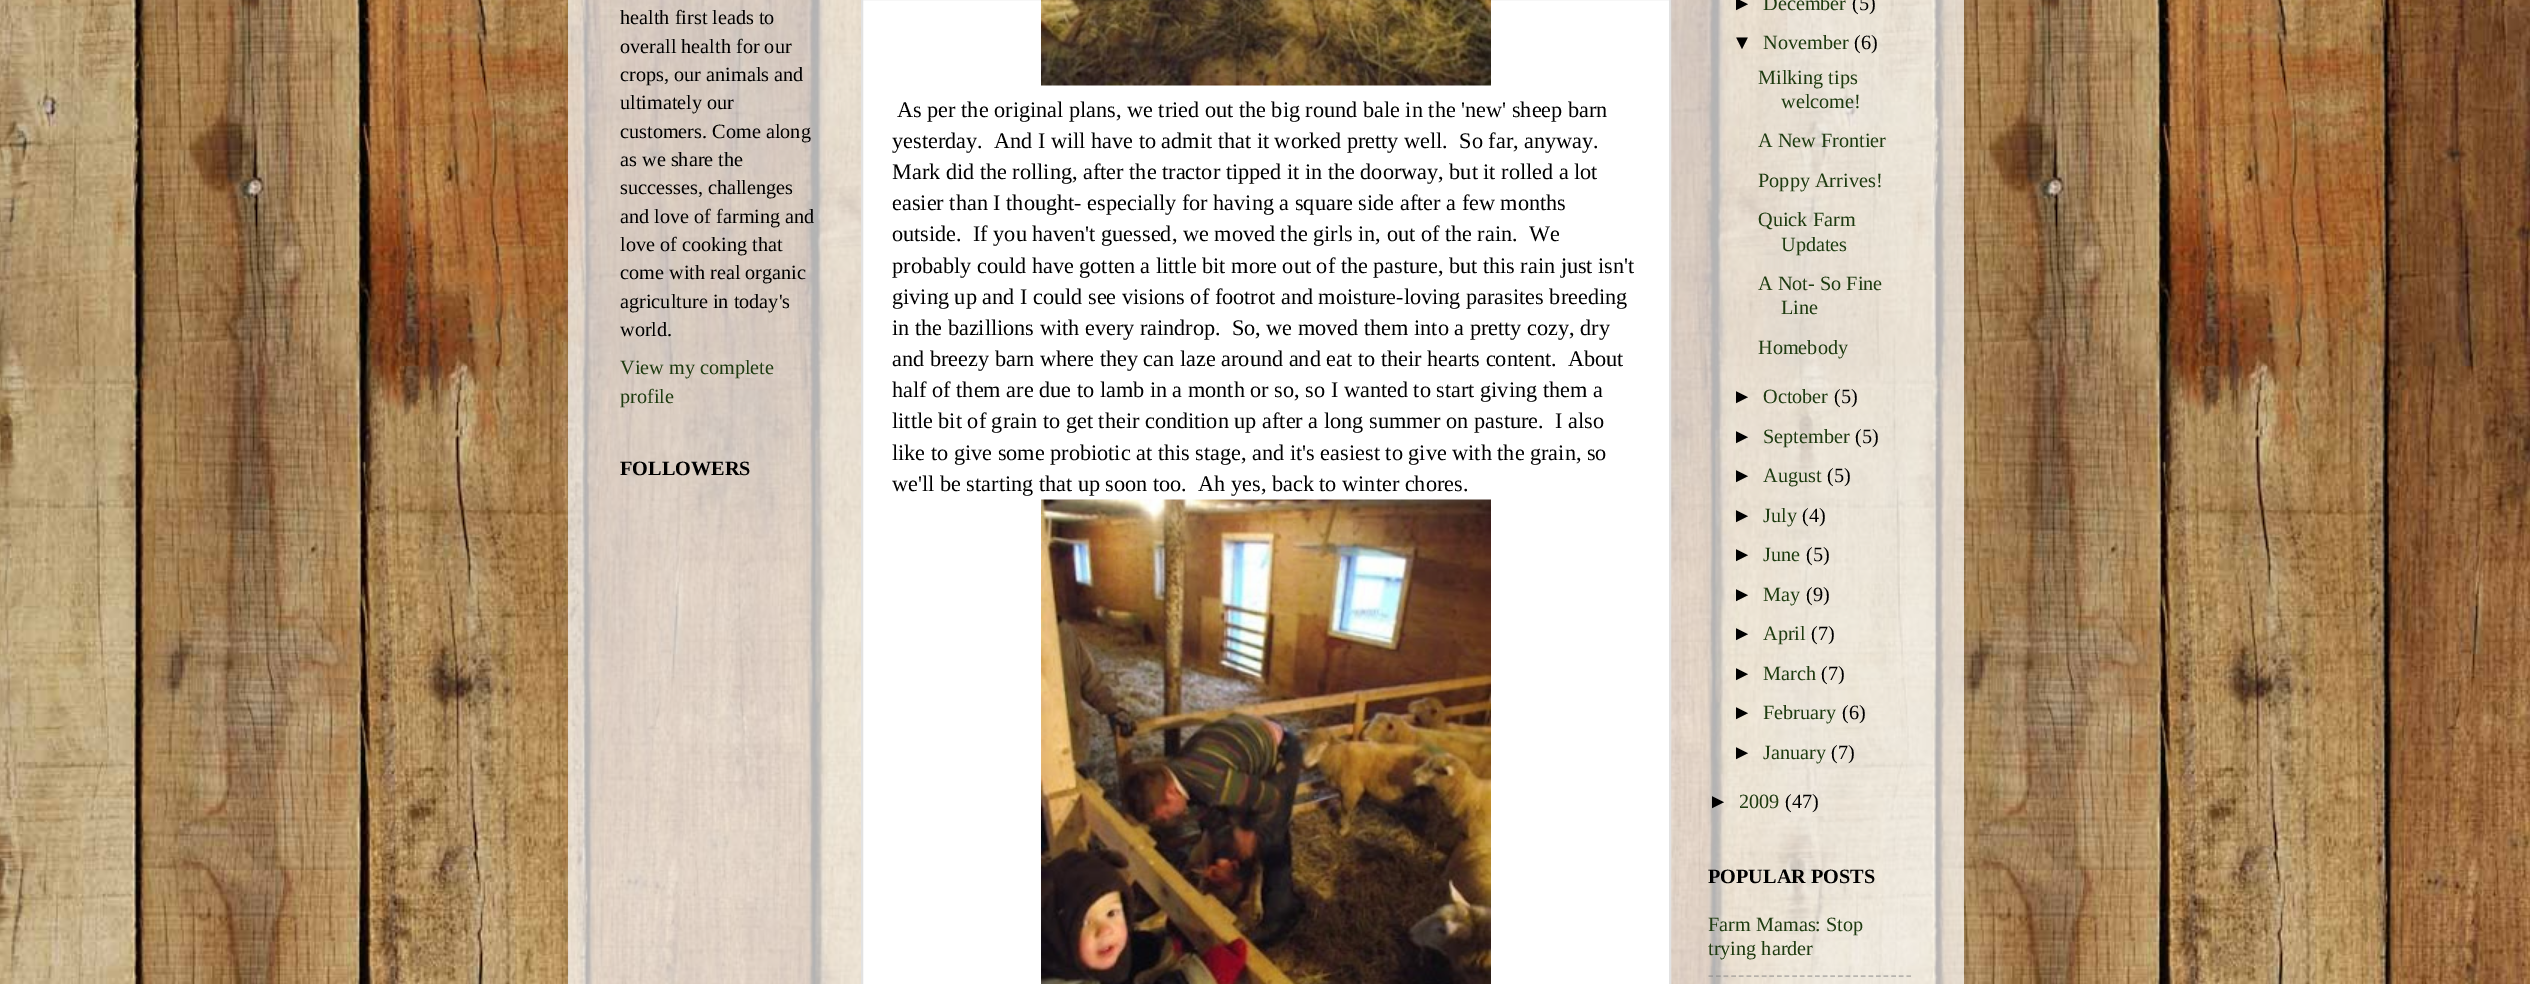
%!PS
<< /PageSize [2530 984] /PageUsesTransparency true >> setpagedevice
/rgb { 3 { 255 div 3 1 roll } repeat setrgbcolor } def
/font { [ exch dup neg 0 0 3 -1 roll 0 0 ] selectfont } def
/alpha { dup .setfillconstantalpha .setstrokeconstantalpha } def
/roundrect { 5 dict begin { /r /h /w /y /x } { exch def } forall
  x r add y moveto x w add y 2 copy h add r arct x w add y h add x 1 index r arct
  x y h add x y r arct x y 2 copy exch w add exch r arct closepath end } def
/shadow { 12 dict begin { /a /b /q /h /w /y /x } { exch def } forall gsave /was 0 def
  9 -2 -9 { dup b mul 4 div /e exch def 1 sub .425 mul 2.718 exch exp 1 add a .99 .min exch div /now exch def
    1 1 now sub 1 was sub div sub alpha /was now def
    w h .min e 2 mul add 0 gt { x e sub y e sub w e 2 mul add h e 2 mul add
      q e add b .6 mul add w h .min 2 div e add .min 0 .max roundrect fill } if } for grestore end } def
/picture { 5 dict begin { /h /w /y /x /name } { exch def } forall
  gsave x y translate w h scale
  w h 8 [w 0 0 h 0 0] name (r) file false 3 colorimage grestore end } def
0 .pushpdf14devicefilter
0 984 translate 1 -1 scale
4 setmiterlimit
255 255 255 rgb
0 0 2530 984 rectfill
(img/1.rgb) 0 0 2530 984 picture
gsave
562 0 moveto 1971 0 lineto 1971 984 lineto 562 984 lineto closepath 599 -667 moveto 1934 -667 lineto 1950.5 -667 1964 -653.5 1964 -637 curveto 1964 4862 lineto 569 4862 lineto 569 -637 lineto 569 -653.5 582.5 -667 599 -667 curveto closepath eoclip newpath
0 0 0 rgb
569 -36 1395 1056 30 2 0.15 shadow
grestore
0.7 alpha
568 0 1396 984 rectfill
1 alpha
862 -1 moveto 1670 -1 lineto 1670 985 lineto 862 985 lineto closepath gsave fill grestore
226 226 226 rgb
2 setlinewidth
stroke
(img/2.rgb) 1041 0 450 86 picture
(img/3.rgb) 1041 499 450 485 picture
0.5 alpha
128 128 128 rgb
1.5 setlinewidth
[4.5 3.12] 0 setdash
1708.5 976 moveto 1911 976 lineto stroke
/LiberationSerif-Regular 20.25 font
1 alpha
0 0 0 rgb
[
  [(health first leads to) 620 24]
  [(overall health for our) 620 53]
  [(crops, our animals and) 620 81]
  [(ultimately our) 620 109]
  [(customers. Come along) 620 138]
  [(as we share the) 620 166]
  [(successes, challenges) 620 194]
  [(and love of farming and) 620 223]
  [(love of cooking that) 620 251]
  [(come with real organic) 620 279]
  [(agriculture in today's) 620 308]
  [(world.) 620 336]
] { aload pop moveto show } forall
30 59 16 rgb
620 374 moveto (View my complete) show
620 403 moveto (profile) show
/LiberationSerif-Bold 20.25 font
0 0 0 rgb
620 475 moveto (FOLLOWERS) show
/LiberationSerif-Regular 22.25 font
[
  [(As per the original plans, we tried out the big round bale in the 'new' sheep barn) 897 117]
  [(yesterday.  And I will have to admit that it worked pretty well.  So far, anyway.) 892 148]
  [(Mark did the rolling, after the tractor tipped it in the doorway, but it rolled a lot) 892 179]
  [(easier than I thought- especially for having a square side after a few months) 892 210]
  [(outside.  If you haven't guessed, we moved the girls in, out of the rain.  We) 892 241]
  [(probably could have gotten a little bit more out of the pasture, but this rain just isn't) 892 273]
  [(giving up and I could see visions of footrot and moisture-loving parasites breeding) 892 304]
  [(in the bazillions with every raindrop.  So, we moved them into a pretty cozy, dry) 892 335]
  [(and breezy barn where they can laze around and eat to their hearts content.  About) 892 366]
  [(half of them are due to lamb in a month or so, so I wanted to start giving them a) 892 397]
  [(little bit of grain to get their condition up after a long summer on pasture.  I also) 892 428]
  [(like to give some probiotic at this stage, and it's easiest to give with the grain, so) 892 460]
  [(we'll be starting that up soon too.  Ah yes, back to winter chores.) 892 491]
] { aload pop moveto show } forall
/LiberationSans-Regular 20.25 font
1732 10 moveto (►) show
/LiberationSerif-Regular 20.25 font
30 59 16 rgb
1763 10 moveto (December) show
0 0 0 rgb
1852 10 moveto (\(5\)) show
/LiberationSans-Regular 20.25 font
1732 49 moveto (▼) show
/LiberationSerif-Regular 20.25 font
30 59 16 rgb
1763 49 moveto (November) show
0 0 0 rgb
1854 49 moveto (\(6\)) show
30 59 16 rgb
[
  [(Milking tips) 1758 84]
  [(welcome!) 1781 108]
  [(A New Frontier) 1758 147]
  [(Poppy Arrives!) 1758 187]
  [(Quick Farm) 1758 226]
  [(Updates) 1781 251]
  [(A Not- So Fine) 1758 290]
  [(Line) 1781 314]
  [(Homebody) 1758 354]
] { aload pop moveto show } forall
/LiberationSans-Regular 20.25 font
0 0 0 rgb
1732 403 moveto (►) show
/LiberationSerif-Regular 20.25 font
30 59 16 rgb
1763 403 moveto (October) show
0 0 0 rgb
1834 403 moveto (\(5\)) show
/LiberationSans-Regular 20.25 font
1732 443 moveto (►) show
/LiberationSerif-Regular 20.25 font
30 59 16 rgb
1763 443 moveto (September) show
0 0 0 rgb
1855 443 moveto (\(5\)) show
/LiberationSans-Regular 20.25 font
1732 482 moveto (►) show
/LiberationSerif-Regular 20.25 font
30 59 16 rgb
1763 482 moveto (August) show
0 0 0 rgb
1827 482 moveto (\(5\)) show
/LiberationSans-Regular 20.25 font
1732 522 moveto (►) show
/LiberationSerif-Regular 20.25 font
30 59 16 rgb
1763 522 moveto (July) show
0 0 0 rgb
1802 522 moveto (\(4\)) show
/LiberationSans-Regular 20.25 font
1732 561 moveto (►) show
/LiberationSerif-Regular 20.25 font
30 59 16 rgb
1763 561 moveto (June) show
0 0 0 rgb
1806 561 moveto (\(5\)) show
/LiberationSans-Regular 20.25 font
1732 601 moveto (►) show
/LiberationSerif-Regular 20.25 font
30 59 16 rgb
1763 601 moveto (May) show
0 0 0 rgb
1806 601 moveto (\(9\)) show
/LiberationSans-Regular 20.25 font
1732 640 moveto (►) show
/LiberationSerif-Regular 20.25 font
30 59 16 rgb
1763 640 moveto (April) show
0 0 0 rgb
1811 640 moveto (\(7\)) show
/LiberationSans-Regular 20.25 font
1732 680 moveto (►) show
/LiberationSerif-Regular 20.25 font
30 59 16 rgb
1763 680 moveto (March) show
0 0 0 rgb
1821 680 moveto (\(7\)) show
/LiberationSans-Regular 20.25 font
1732 719 moveto (►) show
/LiberationSerif-Regular 20.25 font
30 59 16 rgb
1763 719 moveto (February) show
0 0 0 rgb
1842 719 moveto (\(6\)) show
/LiberationSans-Regular 20.25 font
1732 759 moveto (►) show
/LiberationSerif-Regular 20.25 font
30 59 16 rgb
1763 759 moveto (January) show
0 0 0 rgb
1831 759 moveto (\(7\)) show
/LiberationSans-Regular 20.25 font
1708 808 moveto (►) show
/LiberationSerif-Regular 20.25 font
30 59 16 rgb
1739 808 moveto (2009) show
0 0 0 rgb
1785 808 moveto (\(47\)) show
/LiberationSerif-Bold 20.25 font
1708 883 moveto (POPULAR POSTS) show
/LiberationSerif-Regular 20.25 font
30 59 16 rgb
1708 931 moveto (Farm Mamas: Stop) show
1708 955 moveto (trying harder) show
.poppdf14devicefilter showpage
